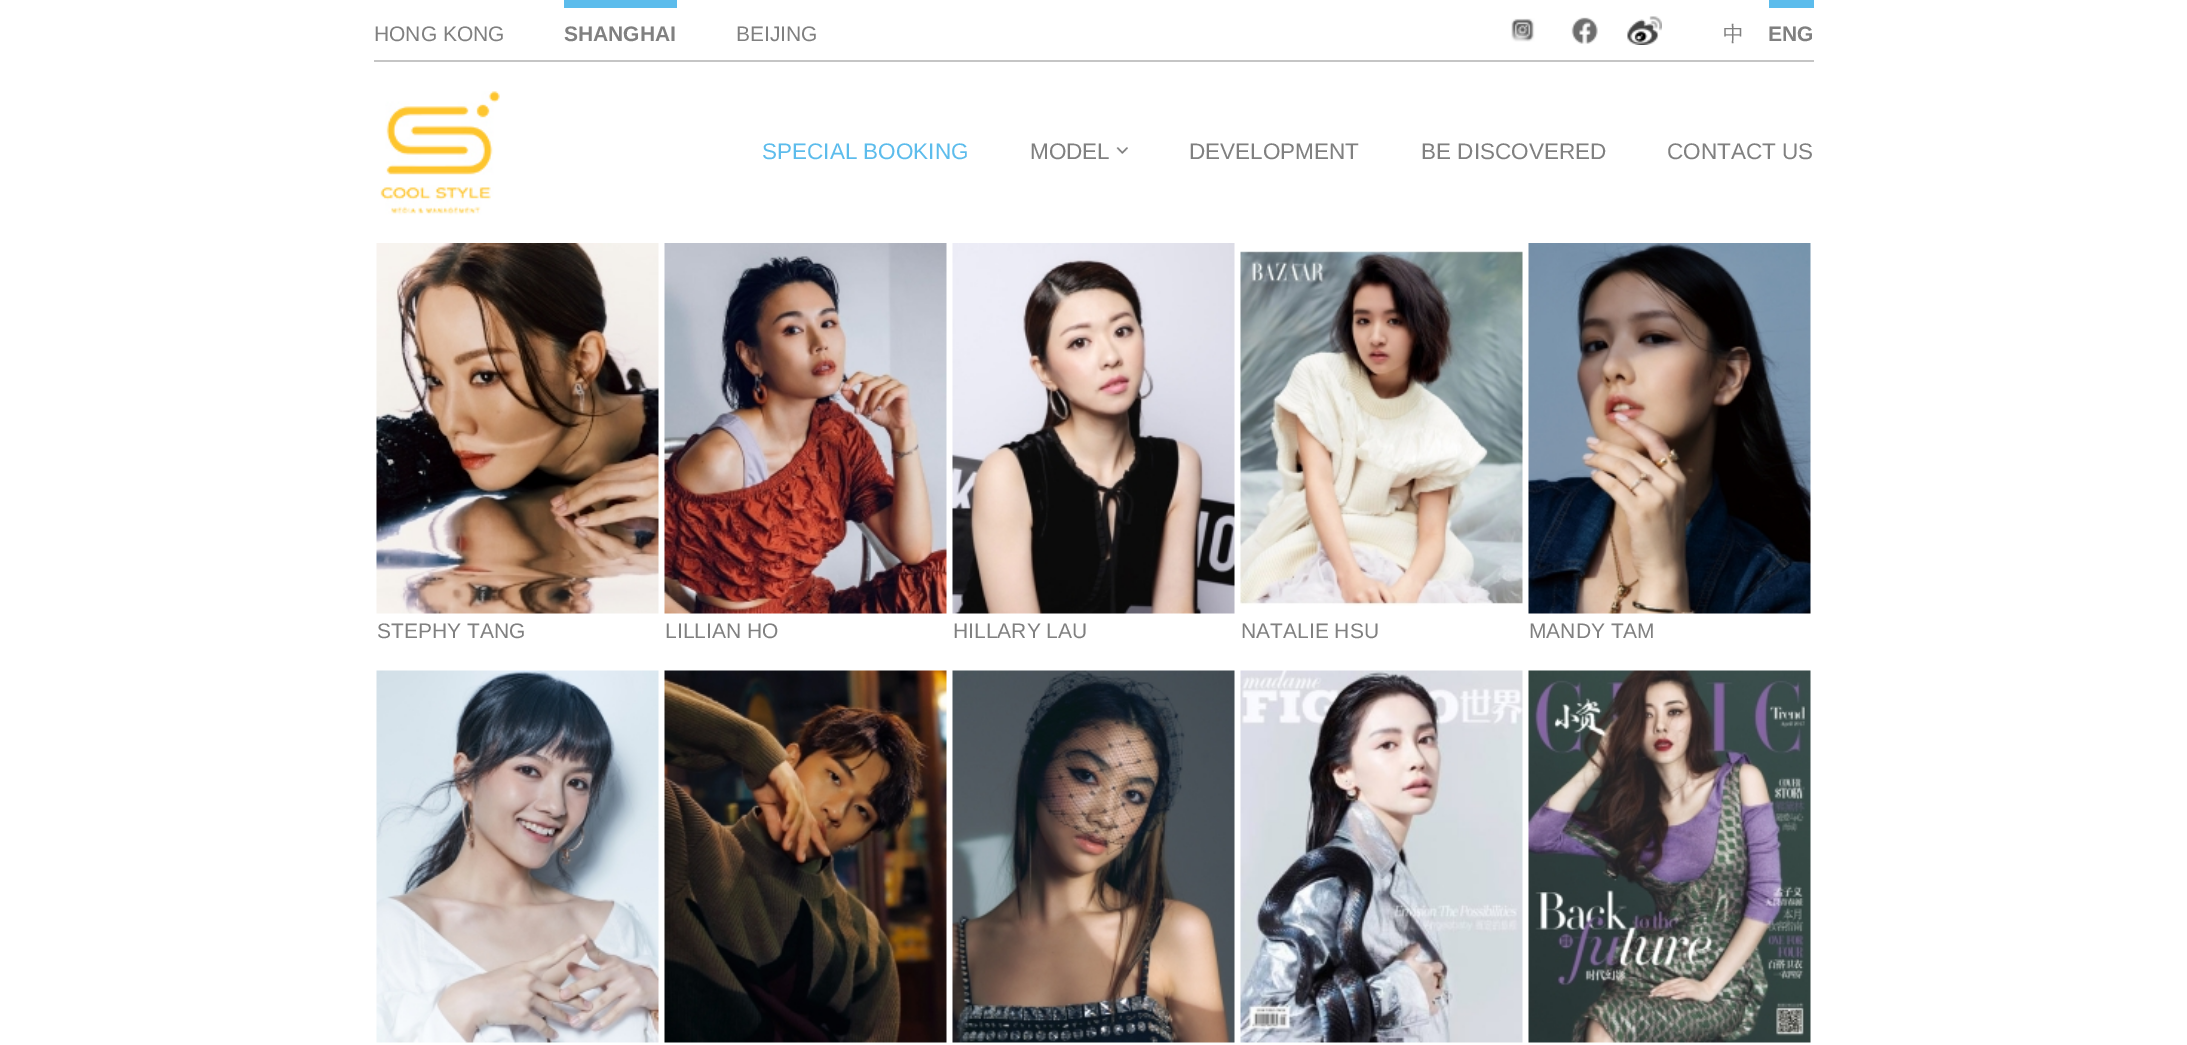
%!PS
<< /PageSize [2187 1045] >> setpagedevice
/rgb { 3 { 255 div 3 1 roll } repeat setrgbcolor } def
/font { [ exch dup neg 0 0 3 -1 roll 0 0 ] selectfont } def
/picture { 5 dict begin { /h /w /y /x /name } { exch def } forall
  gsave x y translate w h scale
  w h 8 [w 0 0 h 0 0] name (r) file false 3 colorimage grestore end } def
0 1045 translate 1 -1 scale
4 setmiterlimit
255 255 255 rgb
0 0 2187 1045 rectfill
197 197 197 rgb
374 60 1440 2 rectfill
92 188 236 rgb
564 0 113 8 rectfill
(img/1.rgb) 1511 18 24 24 picture
(img/2.rgb) 1571 17 27 27 picture
(img/3.rgb) 1627 16 35 29 picture
1769 0 45 8 rectfill
(img/4.rgb) 380 91 120 124 picture
(img/5.rgb) 1116 147 12 7 picture
(img/6.rgb) 376 243 283 371 picture
(img/7.rgb) 664 243 283 371 picture
(img/8.rgb) 952 243 283 371 picture
(img/9.rgb) 1240 251 283 355 picture
(img/10.rgb) 1528 243 283 371 picture
(img/11.rgb) 376 670 283 373 picture
(img/12.rgb) 664 670 283 373 picture
(img/13.rgb) 952 670 283 373 picture
(img/14.rgb) 1240 670 283 373 picture
(img/15.rgb) 1528 670 283 373 picture
/LiberationSans-Regular 21 font
128 128 128 rgb
374 41 moveto (HONG KONG) show
/LiberationSans-Bold 21 font
564 41 moveto (SHANGHAI) show
/LiberationSans-Regular 21 font
736 41 moveto (BEIJING) show
/WenQuanYiZenHei-Medium 21 font
1723 41 moveto (中) show
/LiberationSans-Bold 21 font
1768 41 moveto (ENG) show
/LiberationSans-Regular 22.5 font
92 188 236 rgb
762 159 moveto (SPECIAL BOOKING) show
128 128 128 rgb
[
  [(MODEL) 1030 159]
  [(DEVELOPMENT) 1189 159]
  [(BE DISCOVERED) 1421 159]
  [(CONTACT US) 1667 159]
] { aload pop moveto show } forall
/LiberationSans-Regular 21 font
[
  [(STEPHY TANG) 377 638]
  [(LILLIAN HO) 665 638]
  [(HILLARY LAU) 953 638]
  [(NATALIE HSU) 1241 638]
  [(MANDY TAM) 1529 638]
] { aload pop moveto show } forall
showpage
